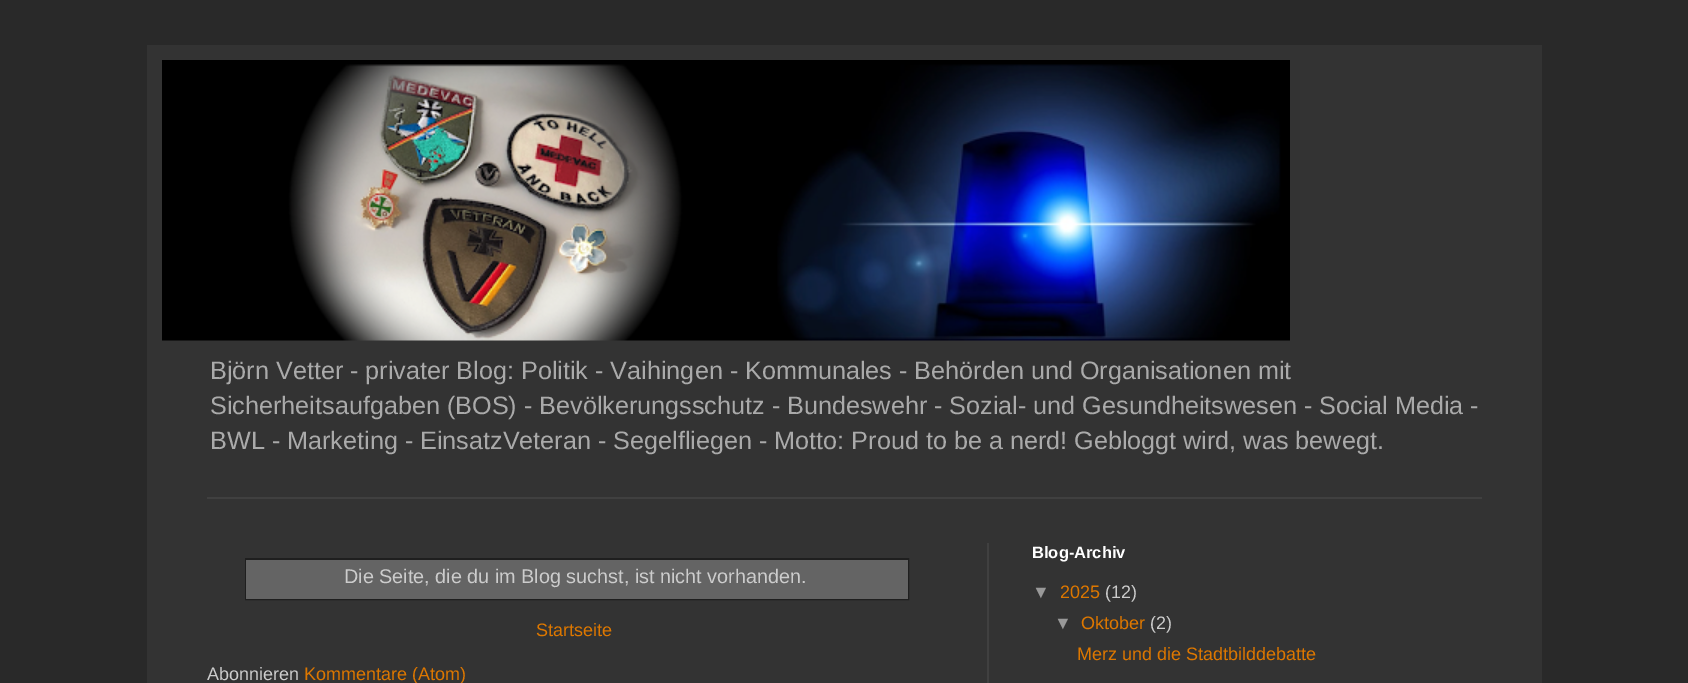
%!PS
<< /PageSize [1688 683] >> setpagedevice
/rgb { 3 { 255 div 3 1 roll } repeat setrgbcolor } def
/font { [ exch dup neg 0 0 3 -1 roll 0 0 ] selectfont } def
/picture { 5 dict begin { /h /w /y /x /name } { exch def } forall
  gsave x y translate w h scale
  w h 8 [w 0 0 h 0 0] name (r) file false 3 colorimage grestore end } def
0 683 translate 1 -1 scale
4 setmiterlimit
41 41 41 rgb
0 0 1688 683 rectfill
51 51 51 rgb
147 45 1395 638 rectfill
(img/1.rgb) 162 60 1128 281 picture
64 64 64 rgb
207 497 1275 2 rectfill
987 543 2 140 rectfill
31 31 31 rgb
2 setlinewidth
246 559 662 40 rectstroke
100 100 100 rgb
246 560 662 39 rectfill
/LiberationSans-Regular 25.2 font
170 170 170 rgb
[
  [(Björn Vetter - privater Blog: Politik - Vaihingen - Kommunales - Behörden und Organisationen mit) 210 379]
  [(Sicherheitsaufgaben \(BOS\) - Bevölkerungsschutz - Bundeswehr - Sozial- und Gesundheitswesen - Social Media -) 210 414]
  [(BWL - Marketing - EinsatzVeteran - Segelfliegen - Motto: Proud to be a nerd! Gebloggt wird, was bewegt.) 210 449]
] { aload pop moveto show } forall
/LiberationSans-Regular 19.8 font
204 204 204 rgb
344 583 moveto (Die Seite, die du im Blog suchst, ist nicht vorhanden.) show
/LiberationSans-Regular 18 font
221 119 0 rgb
536 636 moveto (Startseite) show
204 204 204 rgb
207 680 moveto (Abonnieren) show
221 119 0 rgb
304 680 moveto (Kommentare \(Atom\)) show
/LiberationSans-Bold 16.5 font
255 255 255 rgb
1032 558 moveto (Blog-Archiv) show
/LiberationSans-Regular 18 font
153 153 153 rgb
1032 598 moveto (▼) show
221 119 0 rgb
1060 598 moveto (2025) show
204 204 204 rgb
1105 598 moveto (\(12\)) show
153 153 153 rgb
1054 629 moveto (▼) show
221 119 0 rgb
1081 629 moveto (Oktober) show
204 204 204 rgb
1150 629 moveto (\(2\)) show
221 119 0 rgb
1077 660 moveto (Merz und die Stadtbilddebatte) show
showpage
